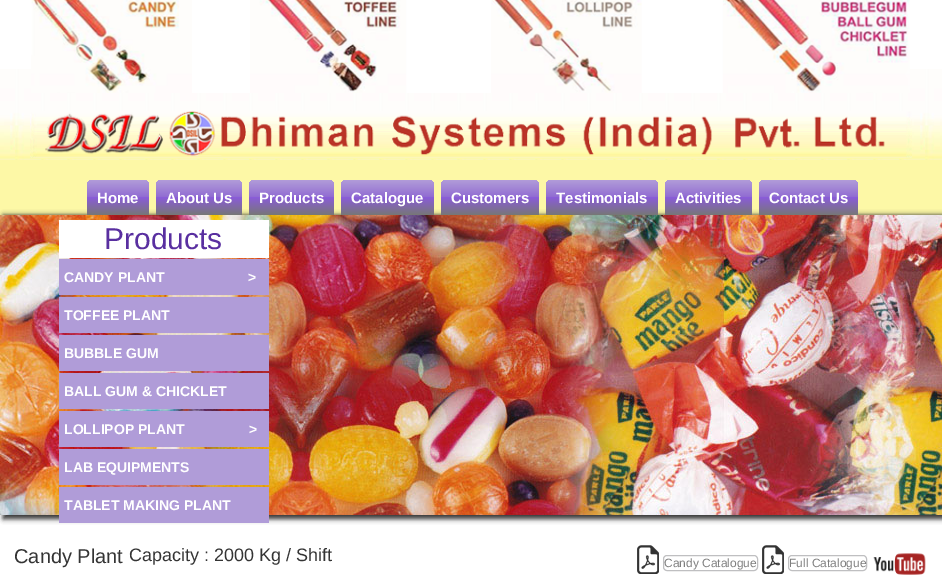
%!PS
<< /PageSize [942 581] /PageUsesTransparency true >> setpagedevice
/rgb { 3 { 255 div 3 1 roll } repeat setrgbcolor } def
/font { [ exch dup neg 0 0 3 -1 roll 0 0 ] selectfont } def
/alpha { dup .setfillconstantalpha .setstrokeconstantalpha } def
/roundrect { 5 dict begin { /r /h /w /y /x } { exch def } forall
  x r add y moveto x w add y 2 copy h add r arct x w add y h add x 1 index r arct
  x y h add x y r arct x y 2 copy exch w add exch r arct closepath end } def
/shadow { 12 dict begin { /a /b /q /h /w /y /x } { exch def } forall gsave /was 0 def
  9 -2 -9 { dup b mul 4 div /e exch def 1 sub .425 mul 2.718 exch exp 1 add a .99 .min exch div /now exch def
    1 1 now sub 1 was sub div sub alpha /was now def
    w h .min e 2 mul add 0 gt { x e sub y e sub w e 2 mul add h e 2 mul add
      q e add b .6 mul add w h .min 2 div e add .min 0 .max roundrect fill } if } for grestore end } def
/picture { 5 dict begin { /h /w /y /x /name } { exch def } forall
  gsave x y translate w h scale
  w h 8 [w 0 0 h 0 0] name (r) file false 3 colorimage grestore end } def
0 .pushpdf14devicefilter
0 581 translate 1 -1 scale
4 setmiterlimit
255 255 255 rgb
0 0 942 581 rectfill
(img/1.rgb) 0 69 942 91 picture
(img/2.rgb) 31 0 879 93 picture
(img/3.rgb) 30 111 882 47 picture
253 248 166 rgb
0 160 942 55 rectfill
51 51 51 rgb
3 215 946 304 0 2.5 1 shadow
gsave 93 180 moveto 143 180 lineto 146.5 180 149 182.5 149 186 curveto 149 215 lineto 87 215 lineto 87 186 lineto 87 182.5 89.5 180 93 180 curveto closepath clip newpath
<< /ShadingType 2 /ColorSpace /DeviceRGB /Coords [118 180 118 215] /Extend [true true] /Function << /FunctionType 3 /Domain [0 1] /Functions [<< /FunctionType 2 /Domain [0 1] /C0 [0.694 0.612 0.851] /C1 [0.573 0.431 0.824] /N 1 >> << /FunctionType 2 /Domain [0 1] /C0 [0.573 0.431 0.824] /C1 [0.541 0.361 0.847] /N 1 >> << /FunctionType 2 /Domain [0 1] /C0 [0.541 0.361 0.847] /C1 [0.467 0.467 0.467] /N 1 >>] /Bounds [0.47 0.5] /Encode [0 1 0 1 0 1] >> >> shfill grestore
gsave 162 180 moveto 236 180 lineto 239.5 180 242 182.5 242 186 curveto 242 215 lineto 156 215 lineto 156 186 lineto 156 182.5 158.5 180 162 180 curveto closepath clip newpath
<< /ShadingType 2 /ColorSpace /DeviceRGB /Coords [199 180 199 215] /Extend [true true] /Function << /FunctionType 3 /Domain [0 1] /Functions [<< /FunctionType 2 /Domain [0 1] /C0 [0.694 0.612 0.851] /C1 [0.573 0.431 0.824] /N 1 >> << /FunctionType 2 /Domain [0 1] /C0 [0.573 0.431 0.824] /C1 [0.541 0.361 0.847] /N 1 >> << /FunctionType 2 /Domain [0 1] /C0 [0.541 0.361 0.847] /C1 [0.467 0.467 0.467] /N 1 >>] /Bounds [0.47 0.5] /Encode [0 1 0 1 0 1] >> >> shfill grestore
gsave 255 180 moveto 328 180 lineto 331.5 180 334 182.5 334 186 curveto 334 215 lineto 249 215 lineto 249 186 lineto 249 182.5 251.5 180 255 180 curveto closepath clip newpath
<< /ShadingType 2 /ColorSpace /DeviceRGB /Coords [292 180 292 215] /Extend [true true] /Function << /FunctionType 3 /Domain [0 1] /Functions [<< /FunctionType 2 /Domain [0 1] /C0 [0.694 0.612 0.851] /C1 [0.573 0.431 0.824] /N 1 >> << /FunctionType 2 /Domain [0 1] /C0 [0.573 0.431 0.824] /C1 [0.541 0.361 0.847] /N 1 >> << /FunctionType 2 /Domain [0 1] /C0 [0.541 0.361 0.847] /C1 [0.467 0.467 0.467] /N 1 >>] /Bounds [0.47 0.5] /Encode [0 1 0 1 0 1] >> >> shfill grestore
gsave 347 180 moveto 428 180 lineto 431.5 180 434 182.5 434 186 curveto 434 215 lineto 341 215 lineto 341 186 lineto 341 182.5 343.5 180 347 180 curveto closepath clip newpath
<< /ShadingType 2 /ColorSpace /DeviceRGB /Coords [388 180 388 215] /Extend [true true] /Function << /FunctionType 3 /Domain [0 1] /Functions [<< /FunctionType 2 /Domain [0 1] /C0 [0.694 0.612 0.851] /C1 [0.573 0.431 0.824] /N 1 >> << /FunctionType 2 /Domain [0 1] /C0 [0.573 0.431 0.824] /C1 [0.541 0.361 0.847] /N 1 >> << /FunctionType 2 /Domain [0 1] /C0 [0.541 0.361 0.847] /C1 [0.467 0.467 0.467] /N 1 >>] /Bounds [0.47 0.5] /Encode [0 1 0 1 0 1] >> >> shfill grestore
gsave 447 180 moveto 533 180 lineto 536.5 180 539 182.5 539 186 curveto 539 215 lineto 441 215 lineto 441 186 lineto 441 182.5 443.5 180 447 180 curveto closepath clip newpath
<< /ShadingType 2 /ColorSpace /DeviceRGB /Coords [490 180 490 215] /Extend [true true] /Function << /FunctionType 3 /Domain [0 1] /Functions [<< /FunctionType 2 /Domain [0 1] /C0 [0.694 0.612 0.851] /C1 [0.573 0.431 0.824] /N 1 >> << /FunctionType 2 /Domain [0 1] /C0 [0.573 0.431 0.824] /C1 [0.541 0.361 0.847] /N 1 >> << /FunctionType 2 /Domain [0 1] /C0 [0.541 0.361 0.847] /C1 [0.467 0.467 0.467] /N 1 >>] /Bounds [0.47 0.5] /Encode [0 1 0 1 0 1] >> >> shfill grestore
gsave 552 180 moveto 652 180 lineto 655.5 180 658 182.5 658 186 curveto 658 215 lineto 546 215 lineto 546 186 lineto 546 182.5 548.5 180 552 180 curveto closepath clip newpath
<< /ShadingType 2 /ColorSpace /DeviceRGB /Coords [602 180 602 215] /Extend [true true] /Function << /FunctionType 3 /Domain [0 1] /Functions [<< /FunctionType 2 /Domain [0 1] /C0 [0.694 0.612 0.851] /C1 [0.573 0.431 0.824] /N 1 >> << /FunctionType 2 /Domain [0 1] /C0 [0.573 0.431 0.824] /C1 [0.541 0.361 0.847] /N 1 >> << /FunctionType 2 /Domain [0 1] /C0 [0.541 0.361 0.847] /C1 [0.467 0.467 0.467] /N 1 >>] /Bounds [0.47 0.5] /Encode [0 1 0 1 0 1] >> >> shfill grestore
gsave 671 180 moveto 746 180 lineto 749.5 180 752 182.5 752 186 curveto 752 215 lineto 665 215 lineto 665 186 lineto 665 182.5 667.5 180 671 180 curveto closepath clip newpath
<< /ShadingType 2 /ColorSpace /DeviceRGB /Coords [709 180 709 215] /Extend [true true] /Function << /FunctionType 3 /Domain [0 1] /Functions [<< /FunctionType 2 /Domain [0 1] /C0 [0.694 0.612 0.851] /C1 [0.573 0.431 0.824] /N 1 >> << /FunctionType 2 /Domain [0 1] /C0 [0.573 0.431 0.824] /C1 [0.541 0.361 0.847] /N 1 >> << /FunctionType 2 /Domain [0 1] /C0 [0.541 0.361 0.847] /C1 [0.467 0.467 0.467] /N 1 >>] /Bounds [0.47 0.5] /Encode [0 1 0 1 0 1] >> >> shfill grestore
gsave 765 180 moveto 852 180 lineto 855.5 180 858 182.5 858 186 curveto 858 215 lineto 759 215 lineto 759 186 lineto 759 182.5 761.5 180 765 180 curveto closepath clip newpath
<< /ShadingType 2 /ColorSpace /DeviceRGB /Coords [809 180 809 215] /Extend [true true] /Function << /FunctionType 3 /Domain [0 1] /Functions [<< /FunctionType 2 /Domain [0 1] /C0 [0.694 0.612 0.851] /C1 [0.573 0.431 0.824] /N 1 >> << /FunctionType 2 /Domain [0 1] /C0 [0.573 0.431 0.824] /C1 [0.541 0.361 0.847] /N 1 >> << /FunctionType 2 /Domain [0 1] /C0 [0.541 0.361 0.847] /C1 [0.467 0.467 0.467] /N 1 >>] /Bounds [0.47 0.5] /Encode [0 1 0 1 0 1] >> >> shfill grestore
(img/4.rgb) 0 215 942 300 picture
[
  [59 220 210 38 255 255 255]
  [59 259 210 36 176 156 216]
  [59 297 210 36 176 156 216]
  [59 335 210 36 176 156 216]
  [59 373 210 36 176 156 216]
  [59 411 210 36 176 156 216]
  [59 449 210 36 176 156 216]
  [59 487 210 36 176 156 216]
] { aload pop rgb rectfill } forall
(img/5.rgb) 637 545 22 29 picture
191 191 193 rgb
663.5 555.5 94 15 3.5 roundrect stroke
(img/5.rgb) 762 545 22 29 picture
788.5 555.5 78 15 3.5 roundrect stroke
(img/6.rgb) 873 553 53 22 picture
/LiberationSans-Bold 15 font
255 255 255 rgb
[
  [(Home) 97 203]
  [(About Us) 166 203]
  [(Products) 259 203]
  [(Catalogue) 351 203]
  [(Customers) 451 203]
  [(Testimonials) 556 203]
  [(Activities) 675 203]
  [(Contact Us) 769 203]
] { aload pop moveto show } forall
/LiberationSans-Regular 30 font
89 47 160 rgb
104 249 moveto (Products) show
/LiberationSans-Bold 14 font
255 255 255 rgb
[
  [(CANDY PLANT) 64 282]
  [(>) 248 282]
  [(TOFFEE PLANT) 64 320]
  [(BUBBLE GUM) 64 358]
  [(BALL GUM & CHICKLET) 64 396]
  [(LOLLIPOP PLANT) 64 434]
  [(>) 249 434]
  [(LAB EQUIPMENTS) 64 472]
  [(TABLET MAKING PLANT) 64 510]
] { aload pop moveto show } forall
/LiberationSans-Regular 20 font
52 52 52 rgb
14 563 moveto (Candy Plant) show
/LiberationSans-Regular 18 font
129 561 moveto (Capacity : 2000 Kg / Shift) show
/LiberationSans-Regular 12 font
126 126 126 rgb
664 567 moveto (Candy Catalogue) show
789 567 moveto (Full Catalogue) show
.poppdf14devicefilter showpage
